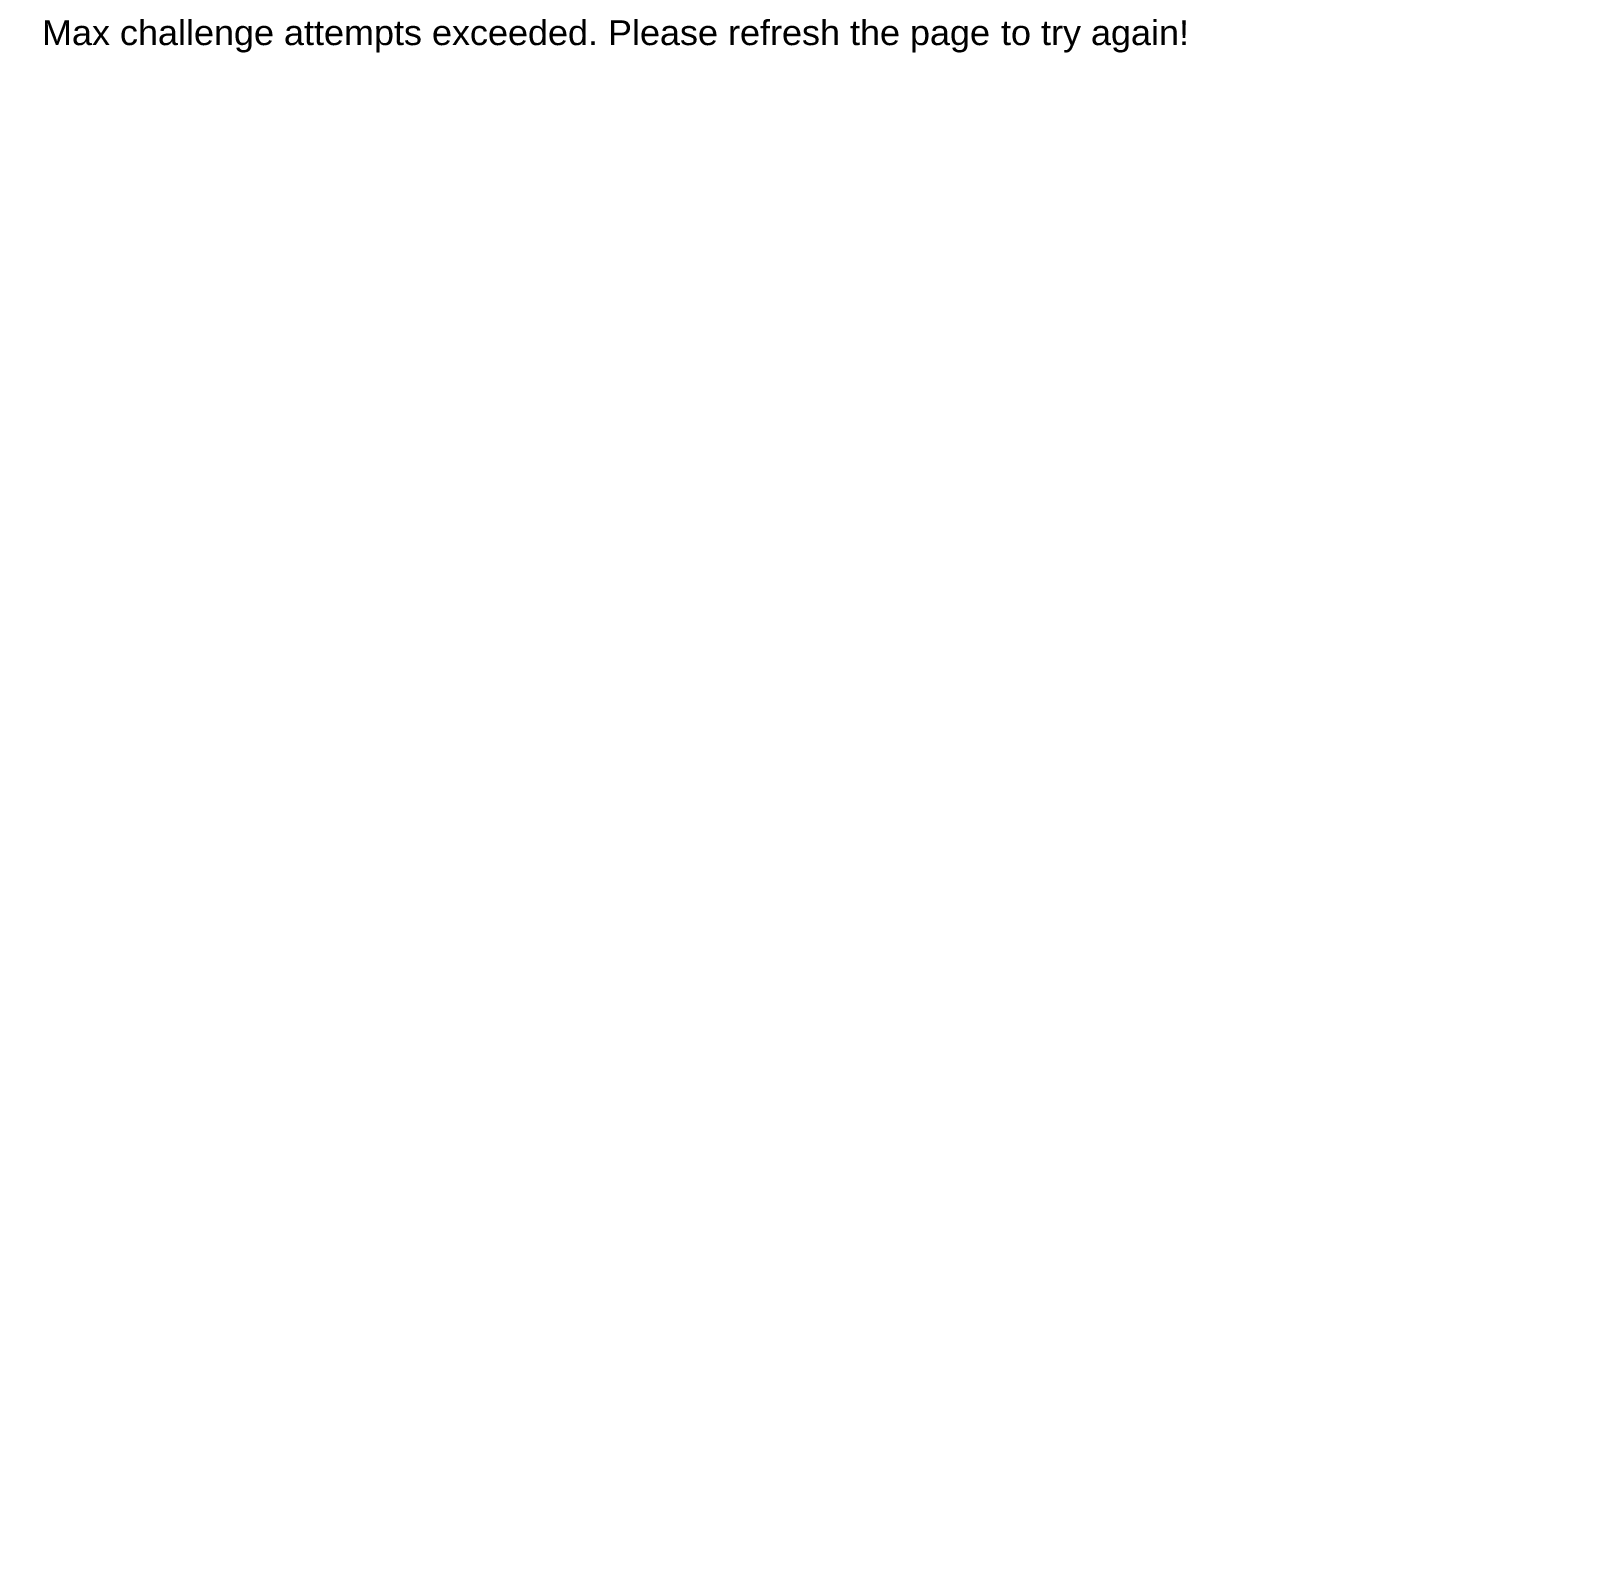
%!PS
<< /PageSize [1613 1582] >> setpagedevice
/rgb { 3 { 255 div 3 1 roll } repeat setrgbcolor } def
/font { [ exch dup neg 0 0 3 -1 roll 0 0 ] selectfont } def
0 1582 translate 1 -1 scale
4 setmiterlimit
255 255 255 rgb
0 0 1613 1582 rectfill
/LiberationSans-Regular 36 font
0 0 0 rgb
42 45 moveto (Max challenge attempts exceeded. Please refresh the page to try again!) show
showpage
